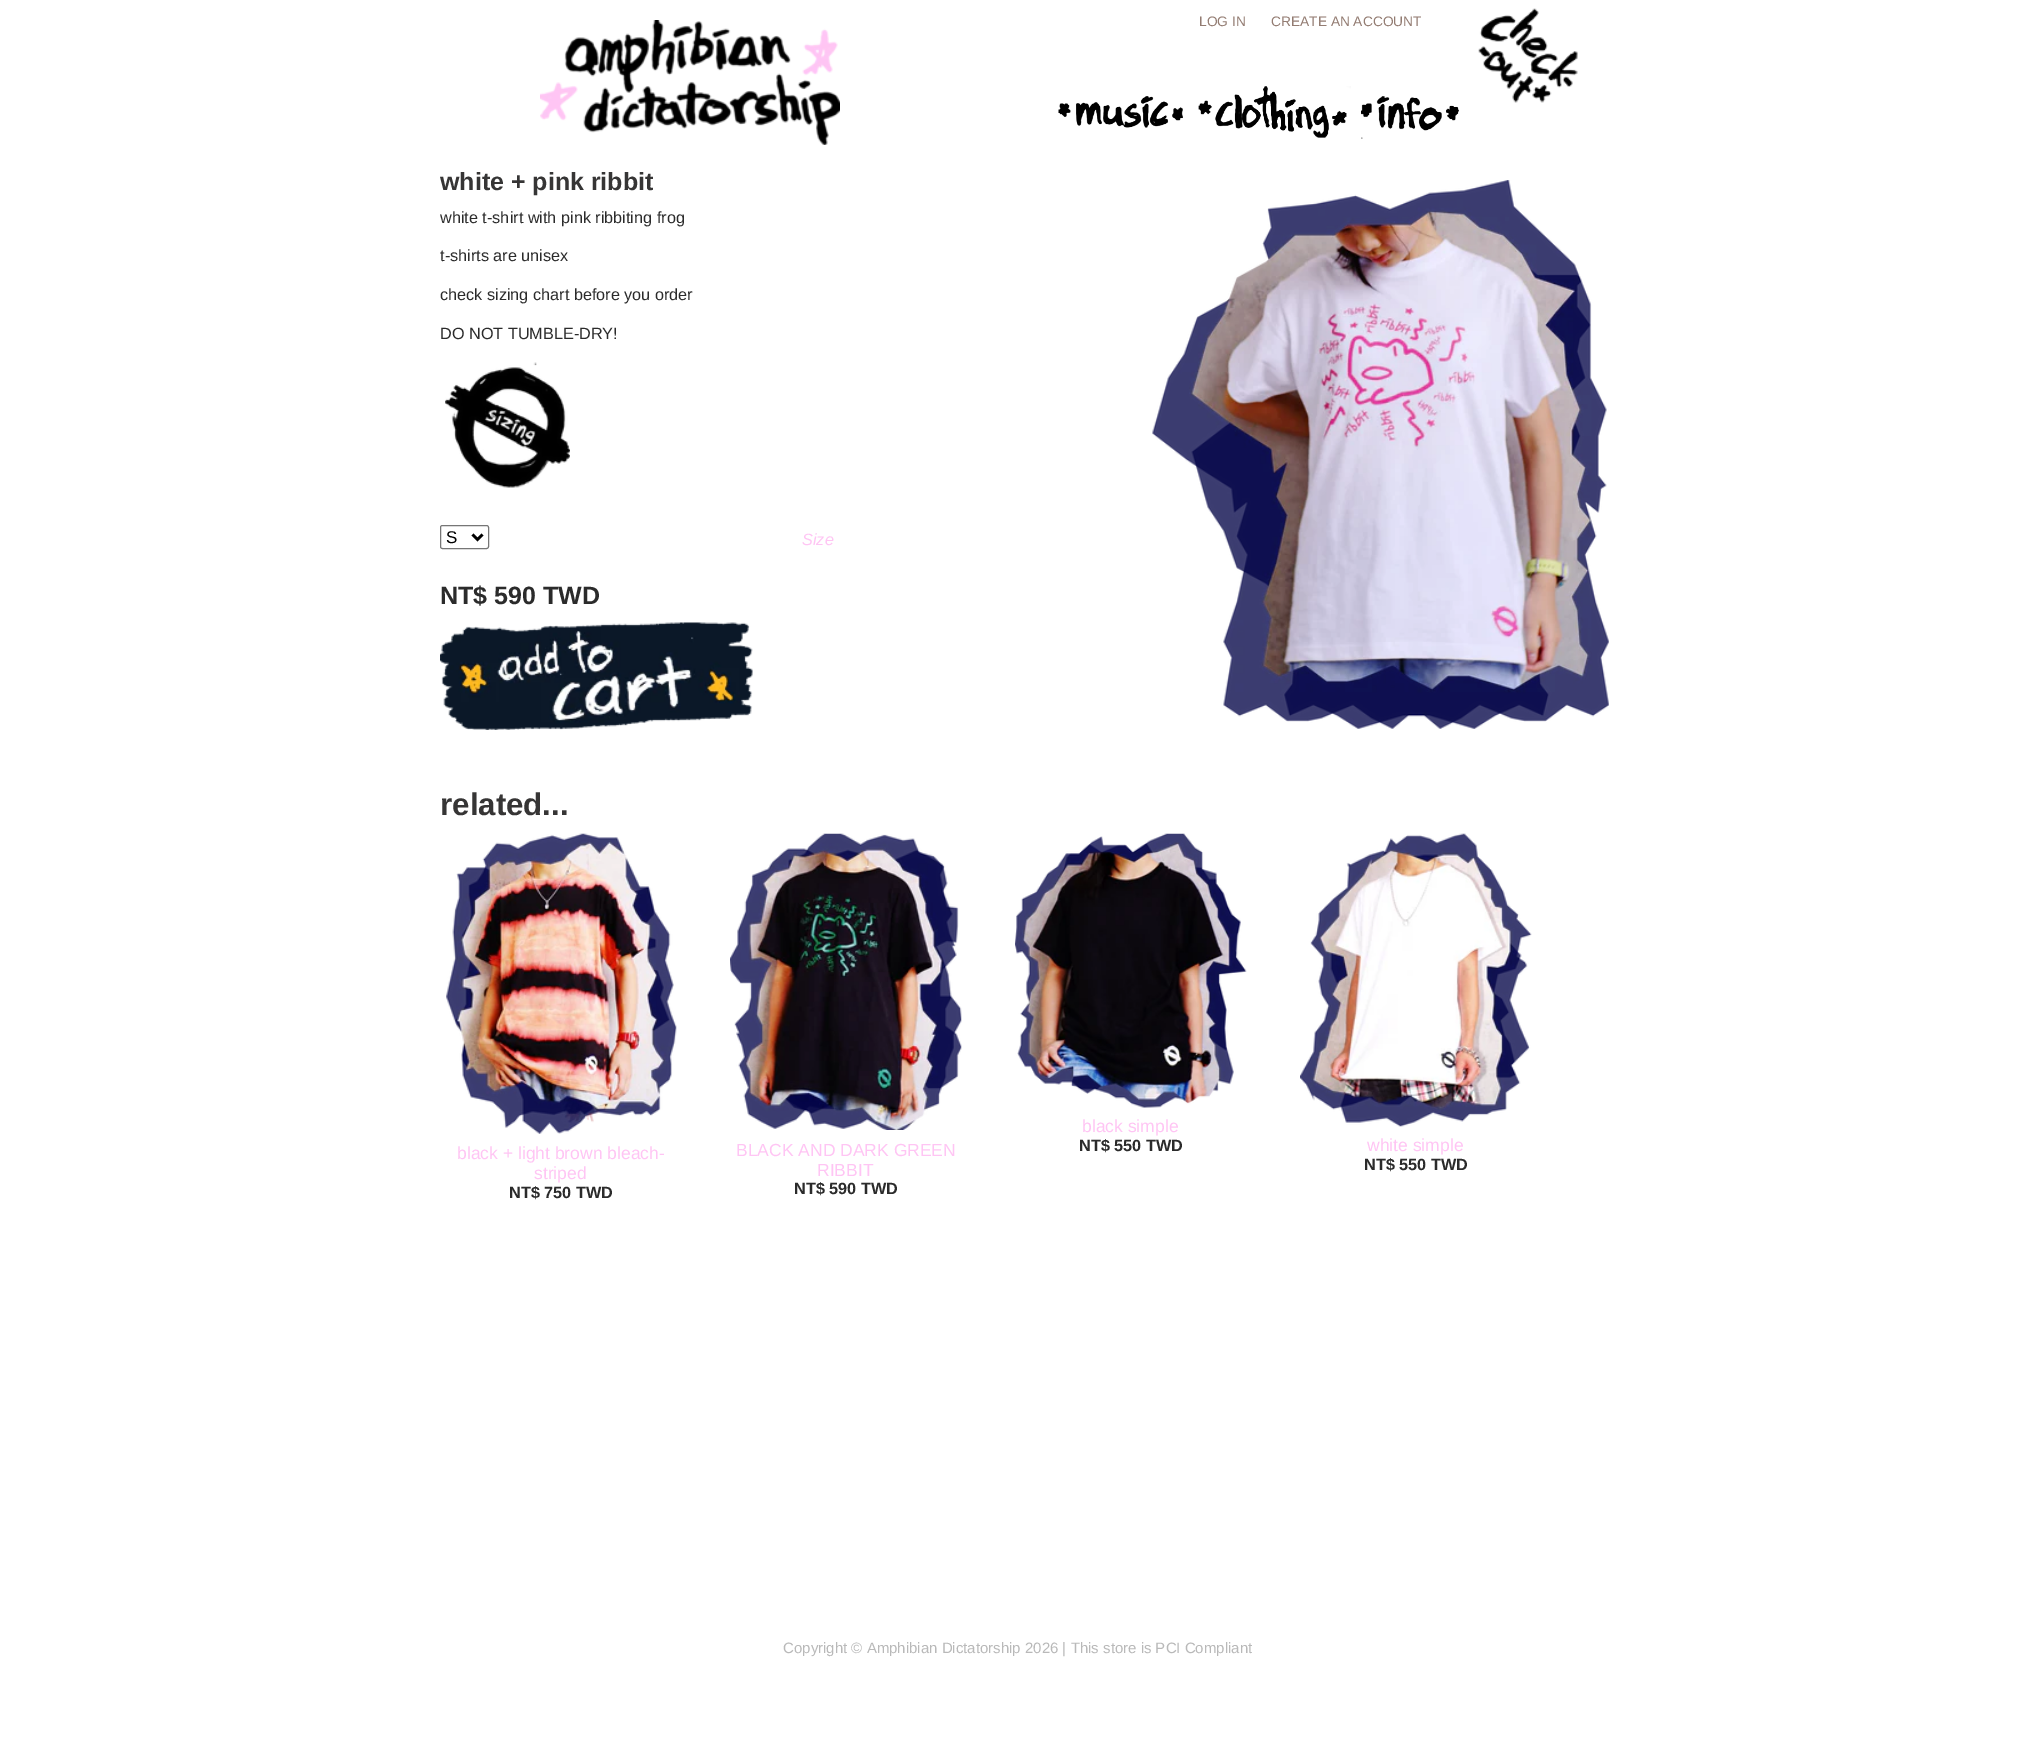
%!PS
<< /PageSize [2036 1752] >> setpagedevice
/rgb { 3 { 255 div 3 1 roll } repeat setrgbcolor } def
/font { [ exch dup neg 0 0 3 -1 roll 0 0 ] selectfont } def
/roundrect { 5 dict begin { /r /h /w /y /x } { exch def } forall
  x r add y moveto x w add y 2 copy h add r arct x w add y h add x 1 index r arct
  x y h add x y r arct x y 2 copy exch w add exch r arct closepath end } def
/picture { 5 dict begin { /h /w /y /x /name } { exch def } forall
  gsave x y translate w h scale
  w h 8 [w 0 0 h 0 0] name (r) file false 3 colorimage grestore end } def
0 1752 translate 1 -1 scale
4 setmiterlimit
255 255 255 rgb
0 0 2036 1752 rectfill
(img/1.rgb) 540 20 300 125 picture
(img/2.rgb) 1478 8 100 95 picture
(img/3.rgb) 1058 96 125 32 picture
(img/4.rgb) 1198 86 153 52 picture
(img/5.rgb) 1361 96 98 43 picture
(img/6.rgb) 445 362 125 126 picture
118 118 118 rgb
440.5 525.5 48 23 2 roundrect stroke
0 0 0 rgb
2.5 setlinewidth
472.5 534.5 moveto 477.5 539.5 lineto 482.5 534.5 lineto stroke
(img/7.rgb) 440 622 313 108 picture
(img/8.rgb) 1152 180 457 549 picture
(img/9.rgb) 446 833 231 301 picture
(img/10.rgb) 730 833 232 297 picture
(img/11.rgb) 1015 833 232 275 picture
(img/12.rgb) 1300 833 232 294 picture
/LiberationSans-Regular 13.75 font
147 124 114 rgb
1199 26 moveto (LOG IN) show
1271 26 moveto (CREATE AN ACCOUNT) show
/LiberationSans-Bold 25 font
54 53 53 rgb
440 190 moveto (white + pink ribbit) show
/LiberationSans-Regular 16.25 font
43 43 43 rgb
[
  [(white t-shirt with pink ribbiting frog) 440 223]
  [(t-shirts are unisex) 440 261]
  [(check sizing chart before you order) 440 300]
  [(DO NOT TUMBLE-DRY!) 440 339]
] { aload pop moveto show } forall
/LiberationSans-Regular 17 font
0 0 0 rgb
446 543 moveto (S) show
/LiberationSans-Italic 16.25 font
255 197 244 rgb
802 545 moveto (Size) show
/LiberationSans-Bold 25 font
43 43 43 rgb
440 604 moveto (NT$ 590 TWD) show
/LiberationSans-Bold 31.25 font
54 53 53 rgb
440 815 moveto (related...) show
/LiberationSans-Regular 17.5 font
255 197 244 rgb
457 1159 moveto (black + light brown bleach-) show
534 1179 moveto (striped) show
/LiberationSans-Bold 16.25 font
43 43 43 rgb
509 1198 moveto (NT$ 750 TWD) show
/LiberationSans-Regular 17.5 font
255 197 244 rgb
736 1156 moveto (BLACK AND DARK GREEN) show
817 1176 moveto (RIBBIT) show
/LiberationSans-Bold 16.25 font
43 43 43 rgb
794 1194 moveto (NT$ 590 TWD) show
/LiberationSans-Regular 17.5 font
255 197 244 rgb
1082 1132 moveto (black simple) show
/LiberationSans-Bold 16.25 font
43 43 43 rgb
1079 1151 moveto (NT$ 550 TWD) show
/LiberationSans-Regular 17.5 font
255 197 244 rgb
1367 1151 moveto (white simple) show
/LiberationSans-Bold 16.25 font
43 43 43 rgb
1364 1170 moveto (NT$ 550 TWD) show
/LiberationSans-Regular 15 font
185 185 185 rgb
783 1653 moveto (Copyright © Amphibian Dictatorship 2026 | This store is PCI Compliant) show
showpage
